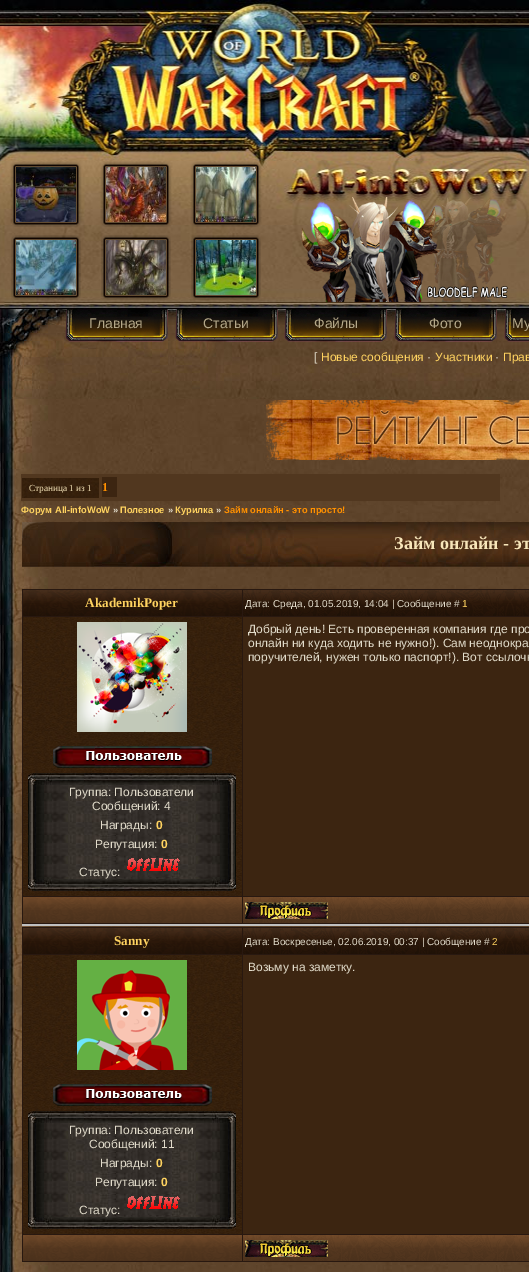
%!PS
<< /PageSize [529 1272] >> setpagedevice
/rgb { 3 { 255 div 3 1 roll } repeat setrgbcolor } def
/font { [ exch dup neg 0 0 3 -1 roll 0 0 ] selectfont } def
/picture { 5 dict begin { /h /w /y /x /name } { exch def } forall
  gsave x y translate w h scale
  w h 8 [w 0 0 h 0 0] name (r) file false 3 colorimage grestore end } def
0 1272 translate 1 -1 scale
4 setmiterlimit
255 255 255 rgb
0 0 529 1272 rectfill
(img/1.rgb) 0 0 529 161 picture
(img/2.rgb) 0 161 529 148 picture
(img/3.rgb) 10 161 72 66 picture
(img/4.rgb) 16 167 60 55 picture
(img/5.rgb) 100 161 72 66 picture
(img/6.rgb) 106 167 60 55 picture
(img/7.rgb) 190 161 72 66 picture
(img/8.rgb) 196 167 60 55 picture
(img/9.rgb) 11 235 70 65 picture
(img/10.rgb) 16 240 60 55 picture
(img/11.rgb) 101 235 70 65 picture
(img/12.rgb) 106 240 60 55 picture
(img/13.rgb) 191 235 70 65 picture
(img/14.rgb) 196 240 60 55 picture
(img/15.rgb) 301 197 207 105 picture
(img/16.rgb) 0 399 529 873 picture
(img/17.rgb) 0 309 529 90 picture
(img/18.rgb) 65 309 103 33 picture
(img/19.rgb) 175 309 103 33 picture
(img/20.rgb) 284 309 103 33 picture
(img/21.rgb) 394 309 103 33 picture
(img/22.rgb) 504 309 25 33 picture
(img/23.rgb) 266 400 263 60 picture
81 55 31 rgb
21 474 479 27 rectfill
(img/24.rgb) 22 478 77 20 picture
60 37 17 rgb
102 477 15 20 rectfill
(img/25.rgb) 22 522 507 45 picture
192 192 192 rgb
22 924 507 2 rectfill
40 24 16 rgb
22 589 507 335 rectfill
(img/26.rgb) 23 590 219 26 picture
(img/27.rgb) 243 590 286 26 picture
60 37 17 rgb
243 617 286 279 rectfill
(img/28.rgb) 23 617 219 279 picture
(img/29.rgb) 77 622 110 110 picture
(img/30.rgb) 53 746 159 22 picture
(img/31.rgb) 28 773 208 12 picture
(img/32.rgb) 28 785 208 94 picture
(img/33.rgb) 127 858 53 13 picture
(img/34.rgb) 28 879 208 12 picture
(img/35.rgb) 23 897 219 26 picture
(img/36.rgb) 243 897 286 26 picture
(img/37.rgb) 245 902 83 17 picture
40 24 16 rgb
22 927 507 335 rectfill
(img/26.rgb) 23 928 219 26 picture
(img/27.rgb) 243 928 286 26 picture
60 37 17 rgb
243 955 286 279 rectfill
(img/38.rgb) 23 955 219 279 picture
(img/39.rgb) 77 960 110 110 picture
(img/30.rgb) 53 1084 159 22 picture
(img/31.rgb) 28 1111 208 12 picture
(img/32.rgb) 28 1123 208 94 picture
(img/33.rgb) 127 1196 53 13 picture
(img/34.rgb) 28 1217 208 12 picture
(img/35.rgb) 23 1235 219 26 picture
(img/36.rgb) 243 1235 286 26 picture
(img/37.rgb) 245 1240 83 17 picture
/LiberationSans-Regular 14 font
180 168 137 rgb
[
  [(Главная) 89 328]
  [(Статьи) 203 328]
  [(Файлы) 314 328]
  [(Фото) 429 328]
  [(Му) 512 328]
] { aload pop moveto show } forall
/LiberationSans-Regular 12 font
226 220 203 rgb
314 361 moveto ([) show
255 211 96 rgb
321 361 moveto (Новые сообщения) show
226 220 203 rgb
427 361 moveto (·) show
255 211 96 rgb
435 361 moveto (Участники) show
226 220 203 rgb
495 361 moveto (·) show
255 211 96 rgb
503 361 moveto (Прав) show
/LiberationSerif-Regular 9.3 font
247 230 186 rgb
29 491 moveto (Страница 1 из 1) show
/LiberationSerif-Bold 12 font
255 144 0 rgb
102 491 moveto (1) show
/LiberationSans-Bold 9.3 font
255 211 96 rgb
21 513 moveto (Форум All-infoWoW) show
226 220 203 rgb
113 513 moveto (») show
255 211 96 rgb
120 513 moveto (Полезное) show
226 220 203 rgb
168 513 moveto (») show
255 211 96 rgb
175 513 moveto (Курилка) show
226 220 203 rgb
216 513 moveto (») show
255 144 0 rgb
224 513 moveto (Займ онлайн - это просто!) show
/LiberationSerif-Bold 18 font
247 230 186 rgb
394 549 moveto (Займ онлайн - эт) show
/LiberationSerif-Bold 13.25 font
255 211 96 rgb
85 607 moveto (AkademikPoper) show
/LiberationSans-Regular 10 font
226 220 203 rgb
245 607 moveto (Дата: Среда, 01.05.2019, 14:04 | Сообщение #) show
255 211 96 rgb
462 607 moveto (1) show
/LiberationSans-Regular 12 font
226 220 203 rgb
[
  [(Добрый день! Есть проверенная компания где про) 248 633]
  [(онлайн ни куда ходить не нужно!\). Сам неоднокра) 248 647]
  [(поручителей, нужен только паспорт!\). Вот ссылочк) 248 661]
  [(Группа: Пользователи) 69 796]
  [(Сообщений: 4) 92 810]
  [(Награды:) 100 829]
] { aload pop moveto show } forall
/LiberationSans-Bold 12 font
255 211 96 rgb
156 829 moveto (0) show
/LiberationSans-Regular 12 font
226 220 203 rgb
95 848 moveto (Репутация:) show
/LiberationSans-Bold 12 font
255 211 96 rgb
161 848 moveto (0) show
/LiberationSans-Regular 12 font
226 220 203 rgb
79 876 moveto (Статус:) show
/LiberationSerif-Bold 13.25 font
255 211 96 rgb
114 945 moveto (Sanny) show
/LiberationSans-Regular 10 font
226 220 203 rgb
245 945 moveto (Дата: Воскресенье, 02.06.2019, 00:37 | Сообщение #) show
255 211 96 rgb
492 945 moveto (2) show
/LiberationSans-Regular 12 font
226 220 203 rgb
[
  [(Возьму на заметку.) 248 971]
  [(Группа: Пользователи) 69 1134]
  [(Сообщений: 11) 89 1148]
  [(Награды:) 100 1167]
] { aload pop moveto show } forall
/LiberationSans-Bold 12 font
255 211 96 rgb
156 1167 moveto (0) show
/LiberationSans-Regular 12 font
226 220 203 rgb
95 1186 moveto (Репутация:) show
/LiberationSans-Bold 12 font
255 211 96 rgb
161 1186 moveto (0) show
/LiberationSans-Regular 12 font
226 220 203 rgb
79 1214 moveto (Статус:) show
showpage
